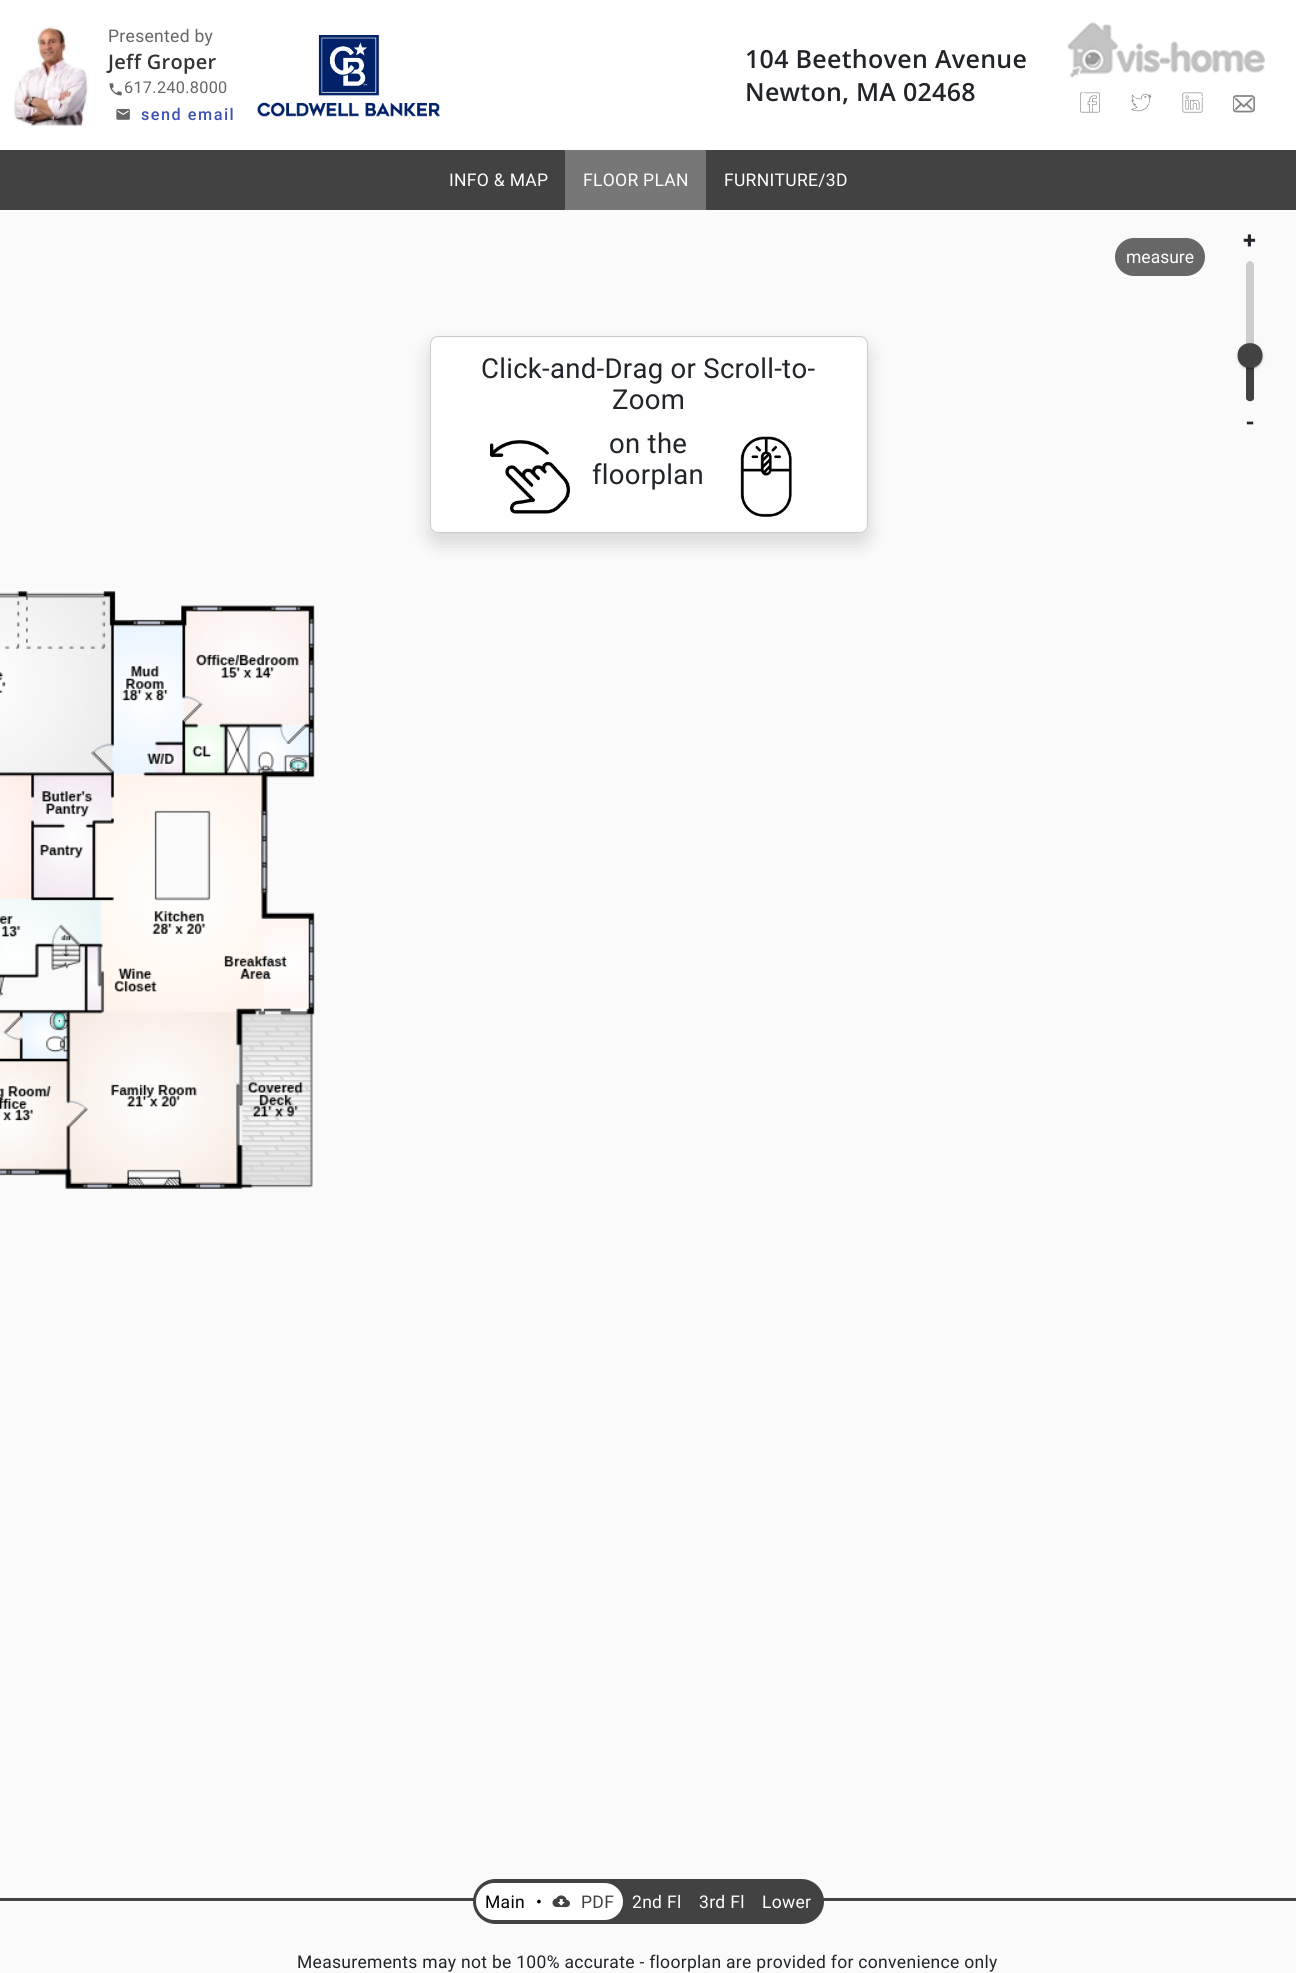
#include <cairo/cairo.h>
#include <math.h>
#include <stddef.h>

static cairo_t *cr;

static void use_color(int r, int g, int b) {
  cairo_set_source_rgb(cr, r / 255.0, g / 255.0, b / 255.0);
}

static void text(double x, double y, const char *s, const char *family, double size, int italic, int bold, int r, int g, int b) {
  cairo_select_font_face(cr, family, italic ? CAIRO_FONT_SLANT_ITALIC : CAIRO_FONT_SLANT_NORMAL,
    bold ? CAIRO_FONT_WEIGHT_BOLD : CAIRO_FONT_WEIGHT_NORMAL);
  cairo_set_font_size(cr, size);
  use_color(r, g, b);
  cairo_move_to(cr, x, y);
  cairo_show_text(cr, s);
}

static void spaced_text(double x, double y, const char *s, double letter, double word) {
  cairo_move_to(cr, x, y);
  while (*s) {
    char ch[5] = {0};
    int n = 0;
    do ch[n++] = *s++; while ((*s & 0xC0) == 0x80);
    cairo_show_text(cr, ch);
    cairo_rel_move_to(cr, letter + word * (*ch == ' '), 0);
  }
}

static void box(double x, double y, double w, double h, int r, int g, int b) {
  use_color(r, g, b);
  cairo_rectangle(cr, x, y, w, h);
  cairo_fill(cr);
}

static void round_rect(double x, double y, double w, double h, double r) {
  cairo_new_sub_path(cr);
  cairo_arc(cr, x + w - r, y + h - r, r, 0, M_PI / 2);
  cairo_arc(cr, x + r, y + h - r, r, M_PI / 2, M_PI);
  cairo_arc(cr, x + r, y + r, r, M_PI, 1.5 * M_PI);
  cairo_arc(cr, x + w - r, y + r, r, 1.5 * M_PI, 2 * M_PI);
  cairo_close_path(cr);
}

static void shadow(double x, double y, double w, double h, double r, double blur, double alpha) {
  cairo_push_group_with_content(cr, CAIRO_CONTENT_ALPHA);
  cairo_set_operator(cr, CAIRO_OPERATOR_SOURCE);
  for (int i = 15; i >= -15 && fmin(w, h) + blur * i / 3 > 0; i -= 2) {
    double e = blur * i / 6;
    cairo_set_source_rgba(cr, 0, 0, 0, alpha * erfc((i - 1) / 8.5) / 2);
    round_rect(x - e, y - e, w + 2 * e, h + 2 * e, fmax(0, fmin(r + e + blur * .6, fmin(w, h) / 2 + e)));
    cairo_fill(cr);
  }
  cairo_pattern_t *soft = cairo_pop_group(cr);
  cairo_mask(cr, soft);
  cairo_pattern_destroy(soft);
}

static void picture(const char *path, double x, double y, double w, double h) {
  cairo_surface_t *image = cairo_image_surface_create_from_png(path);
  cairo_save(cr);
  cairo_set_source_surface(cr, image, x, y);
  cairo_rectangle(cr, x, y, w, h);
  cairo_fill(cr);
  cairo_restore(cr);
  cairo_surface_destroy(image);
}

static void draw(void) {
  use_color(255, 255, 255);
  cairo_paint(cr);
  picture("img_01.png", 13, 26, 75, 100);
  picture("img_02.png", 109, 83, 13, 13);
  picture("img_03.png", 116, 108, 14, 12);
  picture("img_04.png", 257, 35, 183, 82);
  picture("img_05.png", 1067, 22, 198, 56);
  picture("img_06.png", 1080, 92, 20, 21);
  picture("img_07.png", 1131, 93, 21, 19);
  picture("img_08.png", 1182, 92, 21, 21);
  picture("img_09.png", 1233, 95, 22, 18);
  box(0, 150, 1296, 60, 66, 66, 66);
  box(565, 150, 141, 60, 119, 119, 119);
  box(0, 210, 1296, 1763, 250, 250, 250);
  use_color(103, 103, 103);
  round_rect(1115, 238, 90, 38, 19);
  cairo_fill(cr);
  use_color(204, 204, 204);
  cairo_new_path(cr);
  cairo_move_to(cr, 1246, 398);
  cairo_line_to(cr, 1246, 265);
  cairo_curve_to(cr, 1246, 263, 1248, 261, 1250, 261);
  cairo_curve_to(cr, 1252, 261, 1254, 263, 1254, 265);
  cairo_line_to(cr, 1254, 398);
  cairo_curve_to(cr, 1254, 400, 1252, 401, 1250, 401);
  cairo_curve_to(cr, 1248, 401, 1246, 400, 1246, 398);
  cairo_close_path(cr);
  cairo_fill(cr);
  use_color(66, 66, 66);
  cairo_new_path(cr);
  cairo_move_to(cr, 1246, 398);
  cairo_curve_to(cr, 1246, 400, 1249, 402, 1252, 401);
  cairo_line_to(cr, 1254, 399);
  cairo_line_to(cr, 1254, 356);
  cairo_line_to(cr, 1246, 356);
  cairo_close_path(cr);
  cairo_fill(cr);
  use_color(0, 0, 0);
  shadow(1238, 344, 25, 25, 12.5, 2, 0.12);
  shadow(1238, 344, 25, 25, 12.5, 0.5, 0.14);
  shadow(1239, 346, 22, 23, 11, 0.5, 0.2);
  use_color(66, 66, 66);
  cairo_new_path(cr);
  cairo_move_to(cr, 1237.5, 355.5);
  cairo_curve_to(cr, 1237.5, 339, 1262.5, 339, 1262.5, 355.5);
  cairo_curve_to(cr, 1262.5, 372, 1237.5, 372, 1237.5, 355.5);
  cairo_close_path(cr);
  cairo_fill(cr);
  picture("img_10.png", 0, 591, 315, 598);
  box(0, 1898, 1296, 3, 66, 66, 66);
  round_rect(473, 1879, 351, 45, 22.5);
  cairo_fill(cr);
  use_color(255, 255, 255);
  round_rect(476, 1883, 147, 37, 18.5);
  cairo_fill(cr);
  picture("img_11.png", 552, 1895, 18, 13);
  cairo_save(cr);
  cairo_set_fill_rule(cr, CAIRO_FILL_RULE_EVEN_ODD);
  cairo_new_path(cr);
  cairo_move_to(cr, 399, 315);
  cairo_line_to(cr, 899, 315);
  cairo_line_to(cr, 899, 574);
  cairo_line_to(cr, 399, 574);
  cairo_close_path(cr);
  cairo_move_to(cr, 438, 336);
  cairo_line_to(cr, 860, 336);
  cairo_curve_to(cr, 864.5, 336, 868, 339.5, 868, 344);
  cairo_line_to(cr, 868, 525);
  cairo_curve_to(cr, 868, 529.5, 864.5, 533, 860, 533);
  cairo_line_to(cr, 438, 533);
  cairo_curve_to(cr, 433.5, 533, 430, 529.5, 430, 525);
  cairo_line_to(cr, 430, 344);
  cairo_curve_to(cr, 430, 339.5, 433.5, 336, 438, 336);
  cairo_close_path(cr);
  cairo_clip(cr);
  use_color(0, 0, 0);
  shadow(430, 346, 438, 197, 8, 10, 0.15);
  cairo_restore(cr);
  use_color(254, 254, 254);
  round_rect(431, 338, 435, 193, 6);
  cairo_fill(cr);
  round_rect(430.5, 336.5, 437, 196, 7.5);
  cairo_set_source_rgba(cr, 0, 0, 0, 0.18);
  cairo_set_line_width(cr, 1);
  cairo_stroke(cr);
  picture("img_12.png", 490, 440, 80, 74);
  picture("img_13.png", 740, 436, 52, 81);
  cairo_select_font_face(cr, "Roboto", CAIRO_FONT_SLANT_NORMAL, CAIRO_FONT_WEIGHT_NORMAL);
  cairo_set_font_size(cr, 17.5);
  use_color(102, 102, 102);
  spaced_text(108, 42, "Presented by", 0.3, 0);
  cairo_select_font_face(cr, "Open Sans SemiBold", CAIRO_FONT_SLANT_NORMAL, CAIRO_FONT_WEIGHT_NORMAL);
  cairo_set_font_size(cr, 20);
  use_color(51, 51, 51);
  spaced_text(108, 69, "Jeff Groper", 0.3, 0);
  cairo_select_font_face(cr, "Roboto", CAIRO_FONT_SLANT_NORMAL, CAIRO_FONT_WEIGHT_NORMAL);
  cairo_set_font_size(cr, 16.25);
  use_color(102, 102, 102);
  spaced_text(124, 93, "617.240.8000", 0.3, 0);
  cairo_select_font_face(cr, "Roboto Medium", CAIRO_FONT_SLANT_NORMAL, CAIRO_FONT_WEIGHT_NORMAL);
  use_color(63, 81, 181);
  spaced_text(141, 120, "send email", 1.5, 0);
  cairo_select_font_face(cr, "Open Sans SemiBold", CAIRO_FONT_SLANT_NORMAL, CAIRO_FONT_WEIGHT_NORMAL);
  cairo_set_font_size(cr, 25);
  use_color(33, 37, 41);
  spaced_text(745, 68, "104 Beethoven Avenue", 0.3, 0);
  spaced_text(745, 101, "Newton, MA 02468", 0.3, 0);
  cairo_select_font_face(cr, "Roboto", CAIRO_FONT_SLANT_NORMAL, CAIRO_FONT_WEIGHT_NORMAL);
  cairo_set_font_size(cr, 17.5);
  use_color(255, 255, 255);
  spaced_text(449, 186, "INFO & MAP", 0.3, 0);
  spaced_text(583, 186, "FLOOR PLAN", 0.3, 0);
  spaced_text(724, 186, "FURNITURE/3D", 0.3, 0);
  text(1126, 263, "measure", "Roboto", 17.5, 0, 0, 255, 255, 255);
  cairo_select_font_face(cr, "Roboto", CAIRO_FONT_SLANT_NORMAL, CAIRO_FONT_WEIGHT_BOLD);
  cairo_set_font_size(cr, 22);
  use_color(33, 37, 41);
  spaced_text(1243, 248, "+", 0.3, 0);
  spaced_text(1246, 430, "-", 0.3, 0);
  cairo_select_font_face(cr, "Roboto", CAIRO_FONT_SLANT_NORMAL, CAIRO_FONT_WEIGHT_NORMAL);
  cairo_set_font_size(cr, 17.5);
  use_color(0, 0, 0);
  spaced_text(485, 1908, "Main", 0.3, 0);
  spaced_text(536, 1908, "•", 0.3, 0);
  use_color(66, 66, 66);
  spaced_text(581, 1908, "PDF", 0.3, 0);
  use_color(255, 255, 255);
  spaced_text(632, 1908, "2nd Fl", 0.3, 0);
  spaced_text(699, 1908, "3rd Fl", 0.3, 0);
  spaced_text(762, 1908, "Lower", 0.3, 0);
  use_color(33, 37, 41);
  spaced_text(297, 1968, "Measurements may not be 100% accurate - floorplan are provided for convenience only", 0.3, 0);
  cairo_set_font_size(cr, 27.5);
  spaced_text(481, 378, "Click-and-Drag or Scroll-to-", 0.3, 0);
  spaced_text(612, 409, "Zoom", 0.3, 0);
  spaced_text(609, 453, "on the", 0.3, 0);
  spaced_text(592, 484, "floorplan", 0.3, 0);
}

int main(void) {
  cairo_surface_t *surface = cairo_image_surface_create(CAIRO_FORMAT_RGB24, 1296, 1973);
  cr = cairo_create(surface);
  cairo_font_options_t *options = cairo_font_options_create();
  cairo_font_options_set_hint_metrics(options, CAIRO_HINT_METRICS_OFF);
  cairo_font_options_set_hint_style(options, CAIRO_HINT_STYLE_NONE);
  cairo_set_font_options(cr, options);
  cairo_set_miter_limit(cr, 4);
  draw();
  cairo_surface_write_to_png(surface, "out.png");
  cairo_font_options_destroy(options);
  cairo_destroy(cr);
  cairo_surface_destroy(surface);
  return 0;
}
